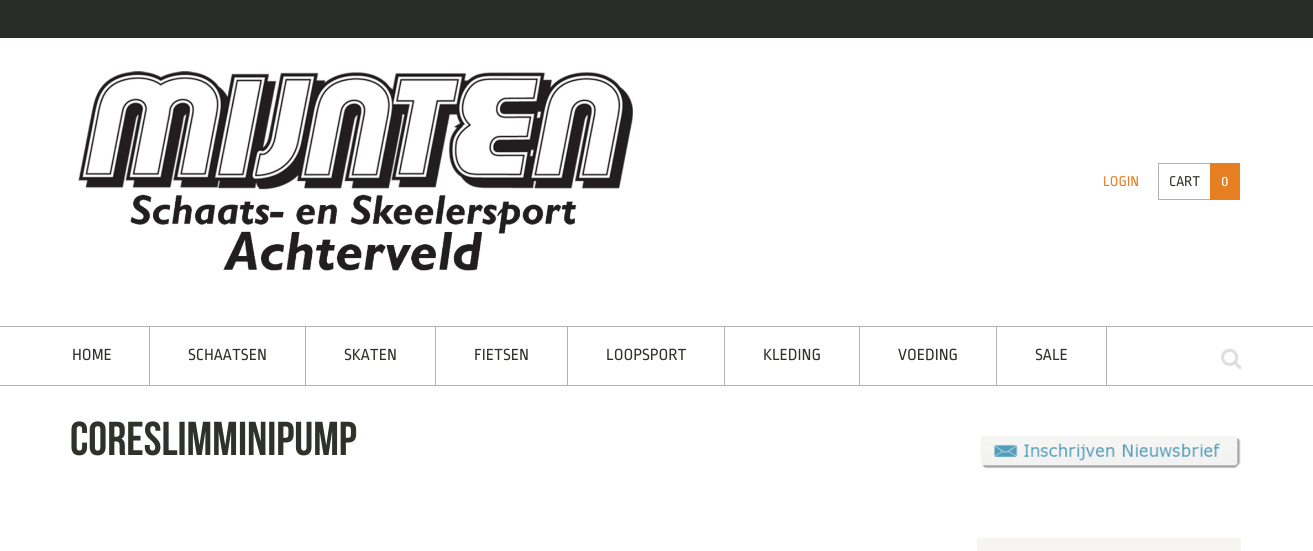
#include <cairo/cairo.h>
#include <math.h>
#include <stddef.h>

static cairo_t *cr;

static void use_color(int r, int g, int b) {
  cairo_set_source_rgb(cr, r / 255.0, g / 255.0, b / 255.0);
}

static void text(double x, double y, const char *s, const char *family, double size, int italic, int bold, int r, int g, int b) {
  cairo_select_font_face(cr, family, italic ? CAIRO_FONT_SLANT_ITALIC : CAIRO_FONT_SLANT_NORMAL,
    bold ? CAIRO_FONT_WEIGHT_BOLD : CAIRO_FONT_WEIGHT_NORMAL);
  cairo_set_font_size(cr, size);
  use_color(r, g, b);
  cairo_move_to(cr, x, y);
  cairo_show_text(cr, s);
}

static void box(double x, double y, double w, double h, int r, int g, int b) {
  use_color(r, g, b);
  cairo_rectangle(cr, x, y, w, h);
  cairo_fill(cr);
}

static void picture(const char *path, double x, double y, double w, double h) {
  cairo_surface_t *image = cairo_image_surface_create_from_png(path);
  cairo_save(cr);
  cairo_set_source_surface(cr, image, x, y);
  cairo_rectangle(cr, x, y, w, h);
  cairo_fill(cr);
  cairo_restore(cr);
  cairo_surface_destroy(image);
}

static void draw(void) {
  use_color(255, 255, 255);
  cairo_paint(cr);
  box(0, 0, 1313, 38, 41, 43, 39);
  picture("img_01.png", 78, 71, 555, 200);
  box(1158, 163, 52, 1, 178, 178, 178);
  box(1158, 199, 52, 1, 178, 178, 178);
  box(1158, 163, 1, 37, 178, 178, 178);
  box(1210, 163, 30, 37, 230, 126, 34);
  box(0, 326, 1313, 1, 178, 178, 178);
  box(0, 385, 1313, 1, 178, 178, 178);
  box(149, 327, 1, 58, 178, 178, 178);
  box(305, 327, 1, 58, 178, 178, 178);
  box(435, 327, 1, 58, 178, 178, 178);
  box(567, 327, 1, 58, 178, 178, 178);
  box(724, 327, 1, 58, 178, 178, 178);
  box(859, 327, 1, 58, 178, 178, 178);
  box(996, 327, 1, 58, 178, 178, 178);
  box(1106, 327, 1, 58, 178, 178, 178);
  picture("img_02.png", 1221, 348, 21, 21);
  picture("img_03.png", 980, 436, 261, 33);
  box(977, 538, 264, 13, 247, 245, 241);
  text(1103, 186, "LOGIN", "Ropa Sans", 15, 0, 0, 230, 126, 34);
  text(1169, 186, "CART", "Ropa Sans", 15, 0, 0, 47, 50, 43);
  text(1221, 186, "0", "Ropa Sans", 15, 0, 0, 255, 255, 255);
  text(72, 360, "HOME", "Ropa Sans", 17, 0, 0, 47, 50, 43);
  text(188, 360, "SCHAATSEN", "Ropa Sans", 17, 0, 0, 47, 50, 43);
  text(344, 360, "SKATEN", "Ropa Sans", 17, 0, 0, 47, 50, 43);
  text(474, 360, "FIETSEN", "Ropa Sans", 17, 0, 0, 47, 50, 43);
  text(606, 360, "LOOPSPORT", "Ropa Sans", 17, 0, 0, 47, 50, 43);
  text(763, 360, "KLEDING", "Ropa Sans", 17, 0, 0, 47, 50, 43);
  text(898, 360, "VOEDING", "Ropa Sans", 17, 0, 0, 47, 50, 43);
  text(1035, 360, "SALE", "Ropa Sans", 17, 0, 0, 47, 50, 43);
  text(70, 455, "coreslimminipump", "Bebas Neue", 47.5, 0, 0, 47, 50, 43);
}

int main(void) {
  cairo_surface_t *surface = cairo_image_surface_create(CAIRO_FORMAT_RGB24, 1313, 551);
  cr = cairo_create(surface);
  cairo_font_options_t *options = cairo_font_options_create();
  cairo_font_options_set_hint_metrics(options, CAIRO_HINT_METRICS_OFF);
  cairo_font_options_set_hint_style(options, CAIRO_HINT_STYLE_NONE);
  cairo_set_font_options(cr, options);
  cairo_set_miter_limit(cr, 4);
  draw();
  cairo_surface_write_to_png(surface, "out.png");
  cairo_font_options_destroy(options);
  cairo_destroy(cr);
  cairo_surface_destroy(surface);
  return 0;
}
